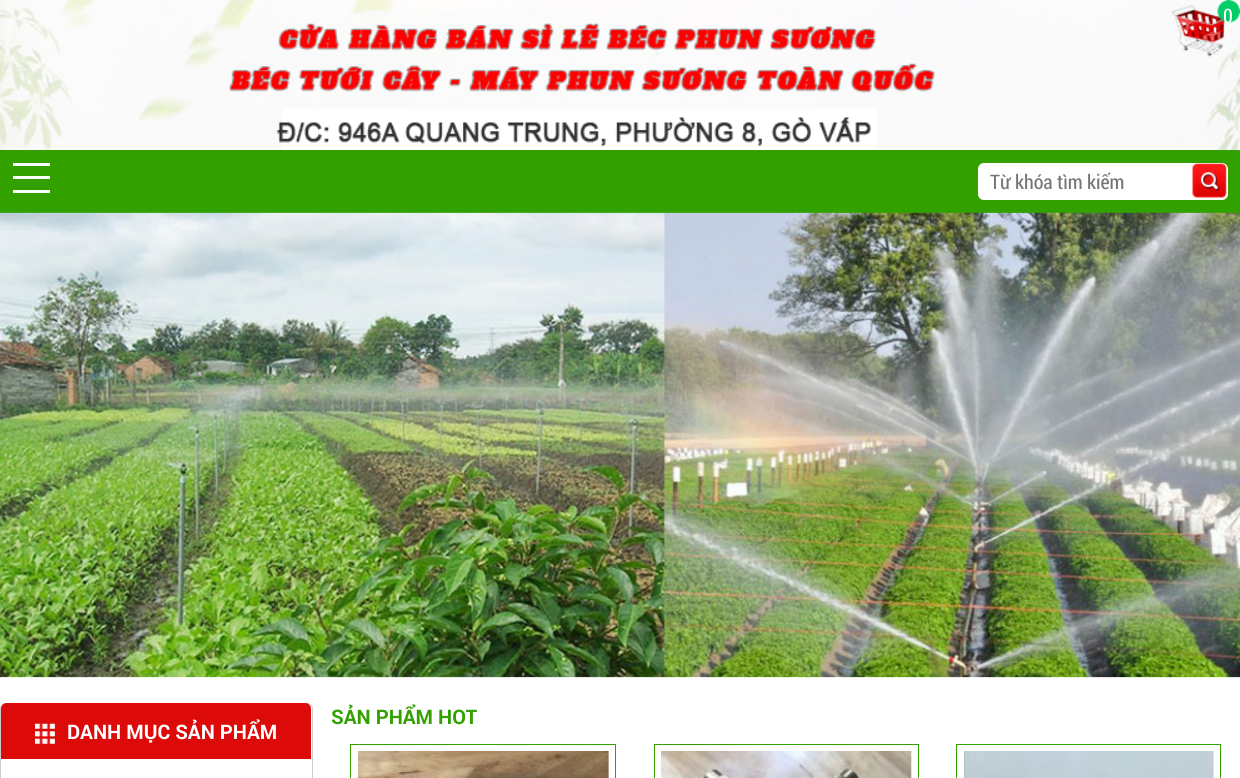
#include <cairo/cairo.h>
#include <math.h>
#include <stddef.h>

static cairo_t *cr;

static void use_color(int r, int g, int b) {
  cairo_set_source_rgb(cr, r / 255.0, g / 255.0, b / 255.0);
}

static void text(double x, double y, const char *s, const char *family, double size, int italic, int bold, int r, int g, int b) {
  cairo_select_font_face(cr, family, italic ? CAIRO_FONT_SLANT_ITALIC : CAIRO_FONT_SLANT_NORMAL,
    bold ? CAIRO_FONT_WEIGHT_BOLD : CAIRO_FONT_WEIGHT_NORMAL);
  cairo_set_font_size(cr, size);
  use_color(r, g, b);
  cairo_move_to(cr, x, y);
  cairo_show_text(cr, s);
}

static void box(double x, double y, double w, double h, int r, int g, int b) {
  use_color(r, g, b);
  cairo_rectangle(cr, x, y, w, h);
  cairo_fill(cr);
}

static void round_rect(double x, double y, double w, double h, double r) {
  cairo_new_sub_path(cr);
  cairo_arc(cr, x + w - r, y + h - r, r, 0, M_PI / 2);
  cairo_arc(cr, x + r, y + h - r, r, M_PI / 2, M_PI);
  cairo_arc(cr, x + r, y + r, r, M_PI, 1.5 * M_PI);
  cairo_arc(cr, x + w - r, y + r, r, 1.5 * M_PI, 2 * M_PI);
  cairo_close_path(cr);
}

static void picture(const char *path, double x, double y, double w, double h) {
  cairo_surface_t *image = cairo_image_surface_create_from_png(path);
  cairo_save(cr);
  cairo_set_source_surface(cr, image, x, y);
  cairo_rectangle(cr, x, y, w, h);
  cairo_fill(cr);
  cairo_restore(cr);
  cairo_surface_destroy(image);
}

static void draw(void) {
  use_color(255, 255, 255);
  cairo_paint(cr);
  picture("img_01.png", 0, 0, 1240, 150);
  picture("img_02.png", 1171, 0, 69, 57);
  box(0, 150, 1240, 63, 50, 161, 0);
  box(13, 163, 37, 3, 255, 255, 255);
  box(13, 176, 37, 3, 255, 255, 255);
  box(13, 190, 37, 3, 255, 255, 255);
  round_rect(978, 163, 250, 37, 6);
  cairo_fill(cr);
  picture("img_03.png", 1192, 163, 35, 35);
  picture("img_04.png", 0, 212, 1240, 466);
  cairo_rectangle(cr, 350.5, 744.5, 265, 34);
  use_color(50, 161, 0);
  cairo_set_line_width(cr, 1);
  cairo_stroke(cr);
  picture("img_05.png", 358, 751, 251, 27);
  cairo_rectangle(cr, 654.5, 744.5, 264, 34);
  cairo_stroke(cr);
  picture("img_06.png", 661, 751, 251, 27);
  cairo_rectangle(cr, 956.5, 744.5, 264, 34);
  cairo_stroke(cr);
  picture("img_07.png", 964, 751, 250, 27);
  round_rect(0.5, 703.5, 312, 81, 5.5);
  use_color(204, 204, 204);
  cairo_stroke(cr);
  use_color(221, 10, 10);
  cairo_new_path(cr);
  cairo_move_to(cr, 7, 703);
  cairo_line_to(cr, 305, 703);
  cairo_curve_to(cr, 308.5, 703, 311, 705.5, 311, 709);
  cairo_line_to(cr, 311, 759);
  cairo_line_to(cr, 1, 759);
  cairo_line_to(cr, 1, 709);
  cairo_curve_to(cr, 1, 705.5, 3.5, 703, 7, 703);
  cairo_close_path(cr);
  cairo_fill(cr);
  picture("img_08.png", 35, 723, 20, 21);
  text(1223, 23, "0", "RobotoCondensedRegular", 20, 0, 0, 255, 255, 255);
  text(990, 189, "Từ khóa tìm kiếm", "RobotoCondensedRegular", 20, 0, 0, 117, 117, 117);
  text(331, 724, "SẢN PHẨM HOT", "Roboto", 20, 0, 1, 50, 161, 0);
  text(67, 739, "DANH MỤC SẢN PHẨM", "Roboto", 20, 0, 1, 255, 255, 255);
}

int main(void) {
  cairo_surface_t *surface = cairo_image_surface_create(CAIRO_FORMAT_RGB24, 1240, 778);
  cr = cairo_create(surface);
  cairo_font_options_t *options = cairo_font_options_create();
  cairo_font_options_set_hint_metrics(options, CAIRO_HINT_METRICS_OFF);
  cairo_font_options_set_hint_style(options, CAIRO_HINT_STYLE_NONE);
  cairo_set_font_options(cr, options);
  cairo_set_miter_limit(cr, 4);
  draw();
  cairo_surface_write_to_png(surface, "out.png");
  cairo_font_options_destroy(options);
  cairo_destroy(cr);
  cairo_surface_destroy(surface);
  return 0;
}
